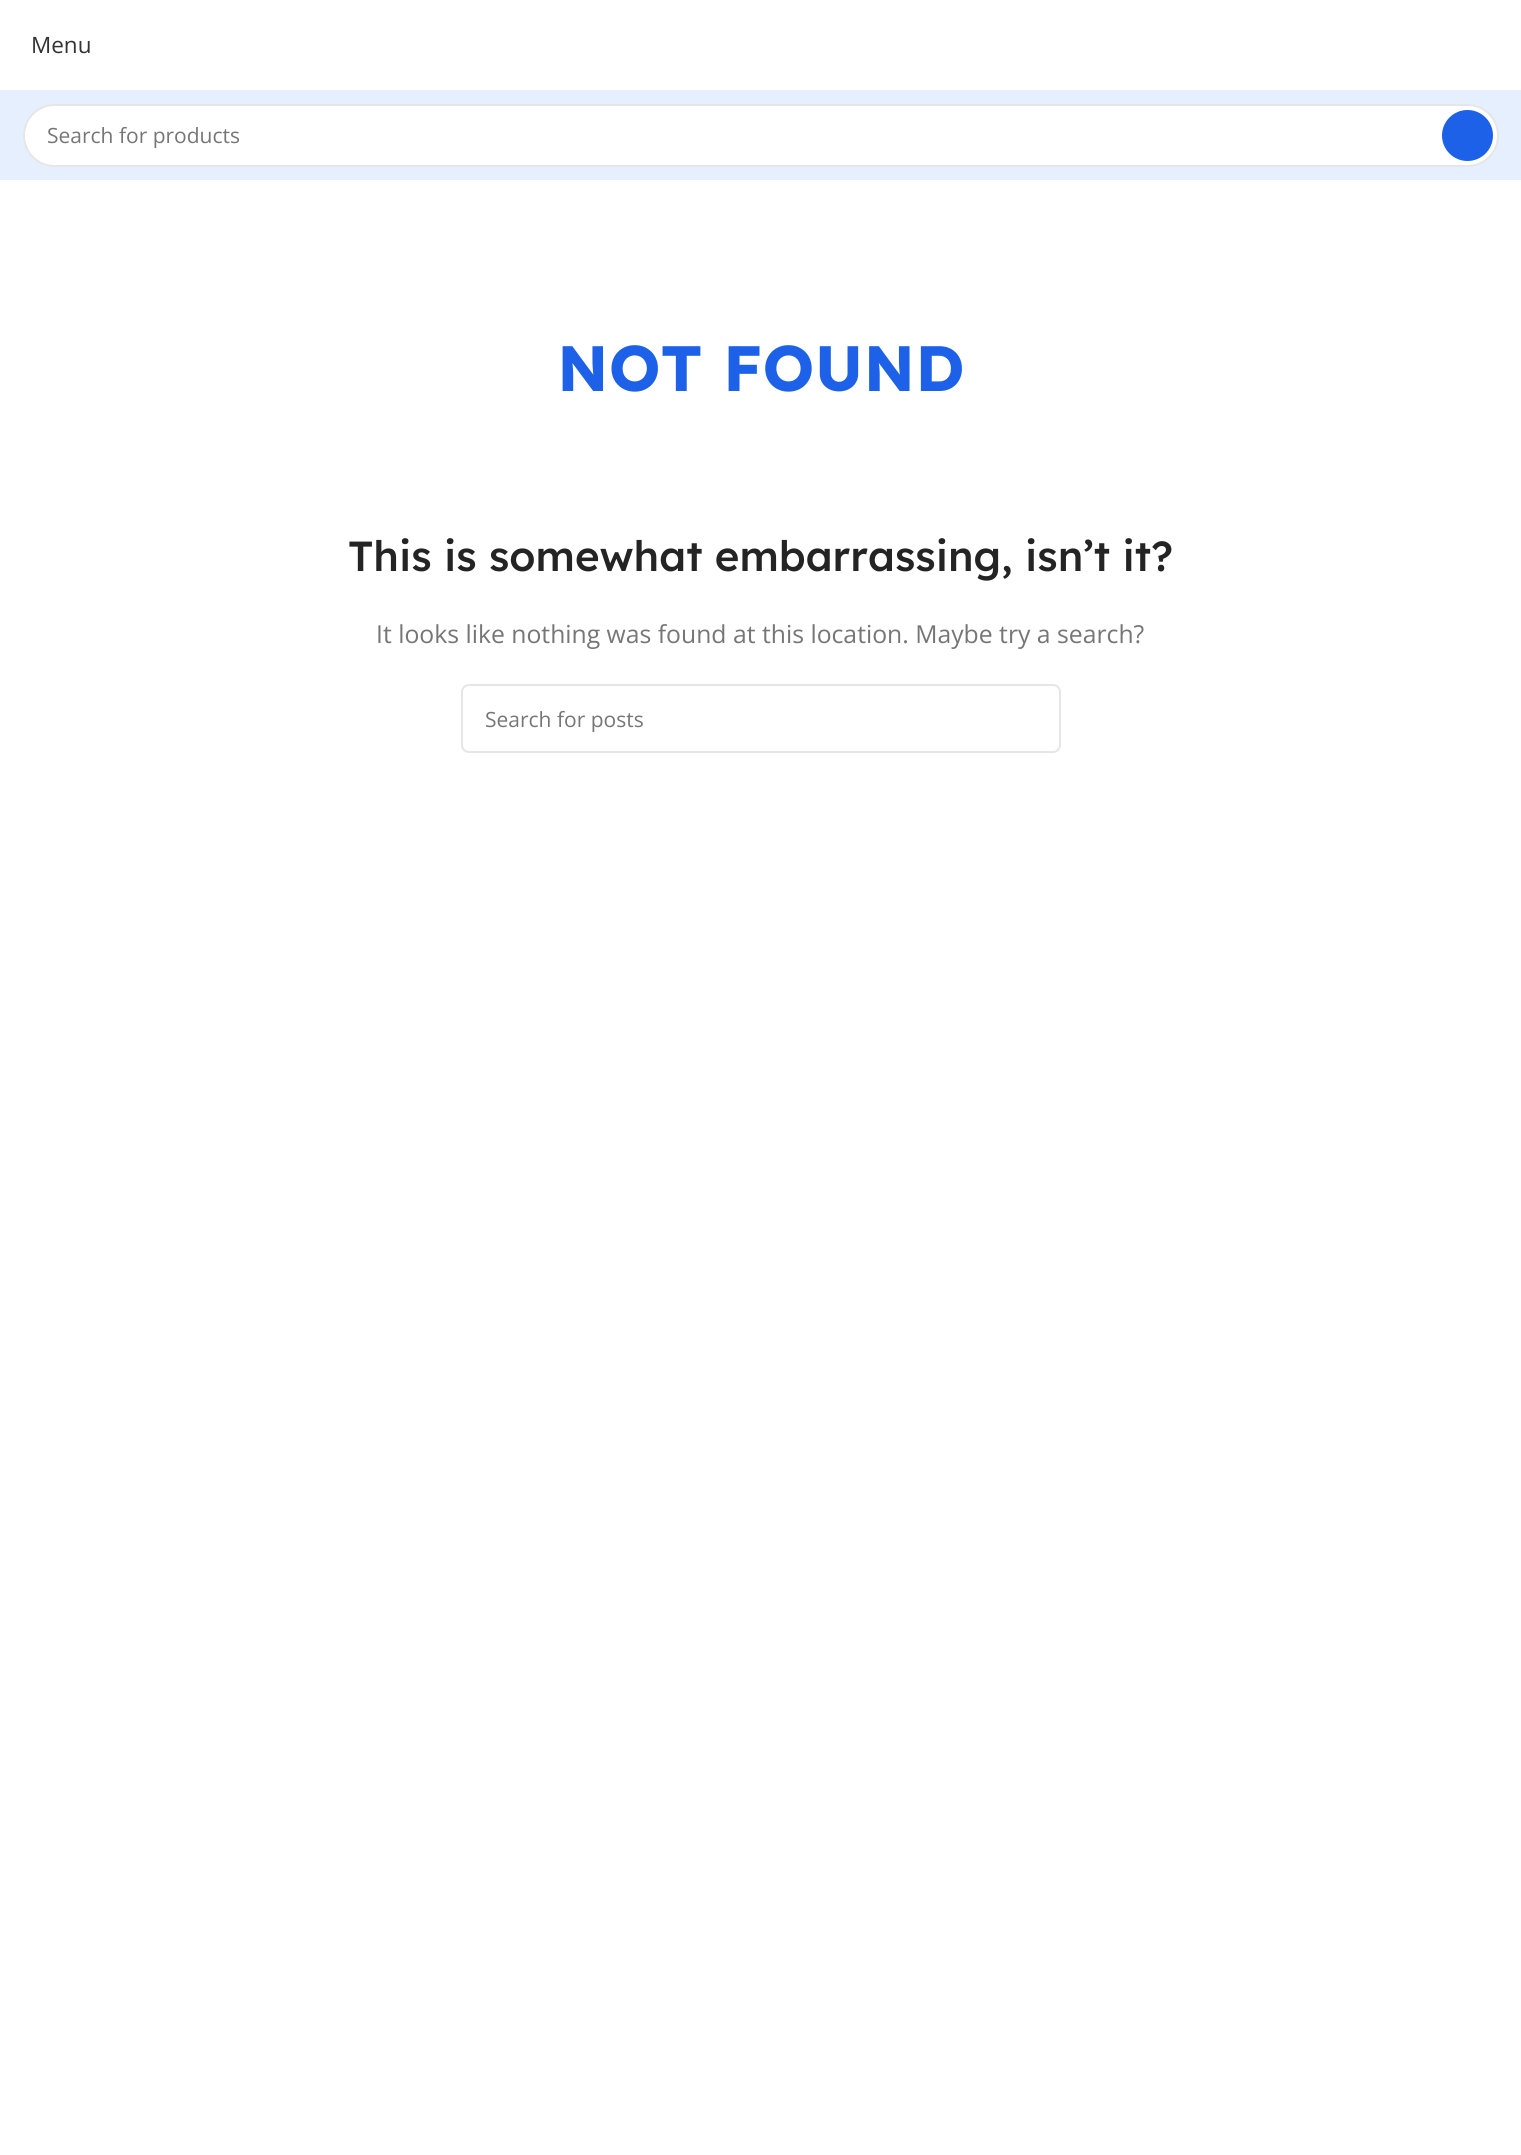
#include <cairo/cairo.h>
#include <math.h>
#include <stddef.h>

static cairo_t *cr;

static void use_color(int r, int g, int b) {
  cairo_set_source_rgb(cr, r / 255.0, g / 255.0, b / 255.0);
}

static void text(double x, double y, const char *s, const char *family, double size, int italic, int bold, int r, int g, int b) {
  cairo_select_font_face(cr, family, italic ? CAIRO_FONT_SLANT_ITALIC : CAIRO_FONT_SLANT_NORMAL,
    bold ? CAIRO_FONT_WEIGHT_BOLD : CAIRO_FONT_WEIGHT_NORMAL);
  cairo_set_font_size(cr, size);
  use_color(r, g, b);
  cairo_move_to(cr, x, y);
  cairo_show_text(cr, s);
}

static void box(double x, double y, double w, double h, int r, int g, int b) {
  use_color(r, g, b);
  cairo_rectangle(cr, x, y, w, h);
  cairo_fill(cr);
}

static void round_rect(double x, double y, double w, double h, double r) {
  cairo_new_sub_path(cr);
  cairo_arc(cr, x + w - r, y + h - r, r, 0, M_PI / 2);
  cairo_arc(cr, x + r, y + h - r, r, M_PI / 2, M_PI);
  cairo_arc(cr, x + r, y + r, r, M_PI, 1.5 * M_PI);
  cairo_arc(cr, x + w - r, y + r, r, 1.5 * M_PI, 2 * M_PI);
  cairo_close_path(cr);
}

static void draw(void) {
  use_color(255, 255, 255);
  cairo_paint(cr);
  box(0, 90, 1521, 90, 230, 239, 253);
  use_color(255, 255, 255);
  round_rect(23, 104, 1476, 63, 31.5);
  cairo_fill(cr);
  round_rect(24, 105, 1474, 61, 30.5);
  cairo_set_source_rgba(cr, 0, 0, 0, 0.1);
  cairo_stroke(cr);
  use_color(28, 97, 231);
  cairo_arc(cr, 1467.5, 135.5, 25.5, 0, 2 * M_PI);
  cairo_fill(cr);
  round_rect(462, 685, 598, 67, 7);
  use_color(230, 230, 230);
  cairo_stroke(cr);
  text(31, 53, "Menu", "Open Sans", 22.5, 0, 0, 51, 51, 51);
  text(47, 143, "Search for products", "Open Sans", 21, 0, 0, 118, 118, 118);
  text(557, 391, "NOT FOUND", "Lexend Deca", 64, 0, 1, 28, 97, 231);
  text(348, 571, "This is somewhat embarrassing, isn’t it?", "Lexend Deca Medium", 42, 0, 0, 36, 36, 36);
  text(376, 643, "It looks like nothing was found at this location. Maybe try a search?", "Open Sans", 24.75, 0, 0, 118, 118, 118);
  text(485, 727, "Search for posts", "Open Sans", 21, 0, 0, 118, 118, 118);
}

int main(void) {
  cairo_surface_t *surface = cairo_image_surface_create(CAIRO_FORMAT_RGB24, 1521, 2155);
  cr = cairo_create(surface);
  cairo_font_options_t *options = cairo_font_options_create();
  cairo_font_options_set_hint_metrics(options, CAIRO_HINT_METRICS_OFF);
  cairo_font_options_set_hint_style(options, CAIRO_HINT_STYLE_NONE);
  cairo_set_font_options(cr, options);
  cairo_set_miter_limit(cr, 4);
  draw();
  cairo_surface_write_to_png(surface, "out.png");
  cairo_font_options_destroy(options);
  cairo_destroy(cr);
  cairo_surface_destroy(surface);
  return 0;
}
